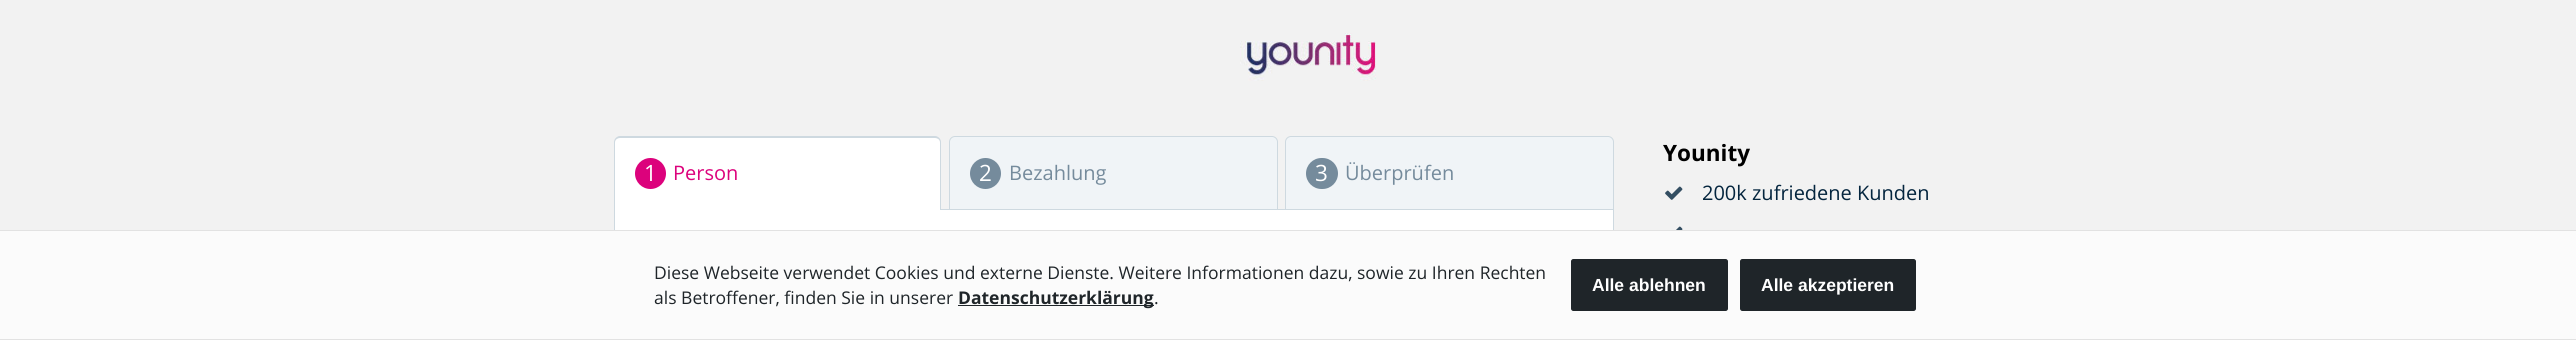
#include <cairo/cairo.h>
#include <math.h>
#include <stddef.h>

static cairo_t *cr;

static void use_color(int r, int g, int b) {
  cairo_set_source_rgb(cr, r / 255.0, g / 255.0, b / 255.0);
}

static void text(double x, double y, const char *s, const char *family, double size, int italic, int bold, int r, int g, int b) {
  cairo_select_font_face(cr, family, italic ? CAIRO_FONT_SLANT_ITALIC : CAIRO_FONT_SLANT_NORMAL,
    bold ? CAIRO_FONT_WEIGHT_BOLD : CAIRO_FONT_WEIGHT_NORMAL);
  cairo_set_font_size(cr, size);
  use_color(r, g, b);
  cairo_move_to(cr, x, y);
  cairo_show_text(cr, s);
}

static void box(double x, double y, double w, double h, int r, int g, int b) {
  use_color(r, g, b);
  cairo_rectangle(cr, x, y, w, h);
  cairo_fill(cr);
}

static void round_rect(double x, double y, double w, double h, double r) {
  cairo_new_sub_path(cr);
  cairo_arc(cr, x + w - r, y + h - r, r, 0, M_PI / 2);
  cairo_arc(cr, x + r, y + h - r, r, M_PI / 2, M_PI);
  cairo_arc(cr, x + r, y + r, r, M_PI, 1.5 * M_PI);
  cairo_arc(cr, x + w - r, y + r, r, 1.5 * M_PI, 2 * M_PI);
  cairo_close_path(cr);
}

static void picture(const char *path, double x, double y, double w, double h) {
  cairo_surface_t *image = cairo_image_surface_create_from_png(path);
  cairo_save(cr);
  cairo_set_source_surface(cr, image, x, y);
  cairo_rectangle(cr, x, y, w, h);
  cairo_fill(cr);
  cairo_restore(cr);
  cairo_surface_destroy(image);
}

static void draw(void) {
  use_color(242, 242, 242);
  cairo_paint(cr);
  picture("img_01.png", 1240, 33, 136, 48);
  box(615, 210, 998, 20, 255, 255, 255);
  cairo_rectangle(cr, 614.5, 209.5, 999, 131);
  use_color(206, 217, 224);
  cairo_set_line_width(cr, 1);
  cairo_stroke(cr);
  use_color(255, 255, 255);
  cairo_new_path(cr);
  cairo_move_to(cr, 620, 138);
  cairo_line_to(cr, 935, 138);
  cairo_curve_to(cr, 938, 138, 940, 140, 940, 143);
  cairo_line_to(cr, 940, 210);
  cairo_line_to(cr, 615, 210);
  cairo_line_to(cr, 615, 143);
  cairo_curve_to(cr, 615, 140, 617, 138, 620, 138);
  cairo_close_path(cr);
  cairo_fill(cr);
  use_color(206, 217, 224);
  cairo_set_fill_rule(cr, CAIRO_FILL_RULE_EVEN_ODD);
  cairo_new_path(cr);
  cairo_move_to(cr, 620, 136);
  cairo_line_to(cr, 935, 136);
  cairo_curve_to(cr, 938, 136, 941, 139, 941, 142);
  cairo_line_to(cr, 941, 210);
  cairo_line_to(cr, 614, 210);
  cairo_line_to(cr, 614, 142);
  cairo_curve_to(cr, 614, 139, 617, 136, 620, 136);
  cairo_close_path(cr);
  cairo_move_to(cr, 620, 138);
  cairo_line_to(cr, 935, 138);
  cairo_curve_to(cr, 938, 138, 940, 140, 940, 142);
  cairo_line_to(cr, 940, 210);
  cairo_line_to(cr, 615, 210);
  cairo_line_to(cr, 615, 142);
  cairo_curve_to(cr, 615, 140, 617, 138, 620, 138);
  cairo_close_path(cr);
  cairo_fill(cr);
  use_color(220, 2, 124);
  cairo_arc(cr, 650.5, 173.5, 15.5, 0, 2 * M_PI);
  cairo_fill(cr);
  use_color(240, 244, 247);
  cairo_new_path(cr);
  cairo_move_to(cr, 955, 136.5);
  cairo_line_to(cr, 1272, 136.5);
  cairo_curve_to(cr, 1275, 136.5, 1277.5, 139, 1277.5, 142);
  cairo_line_to(cr, 1277.5, 209.5);
  cairo_line_to(cr, 949.5, 209.5);
  cairo_line_to(cr, 949.5, 142);
  cairo_curve_to(cr, 949.5, 139, 952, 136.5, 955, 136.5);
  cairo_close_path(cr);
  cairo_fill_preserve(cr);
  use_color(206, 217, 224);
  cairo_stroke(cr);
  use_color(117, 139, 156);
  cairo_arc(cr, 985.5, 173.5, 15.5, 0, 2 * M_PI);
  cairo_fill(cr);
  use_color(240, 244, 247);
  cairo_new_path(cr);
  cairo_move_to(cr, 1291, 136.5);
  cairo_line_to(cr, 1608, 136.5);
  cairo_curve_to(cr, 1611, 136.5, 1613.5, 139, 1613.5, 142);
  cairo_line_to(cr, 1613.5, 209.5);
  cairo_line_to(cr, 1285.5, 209.5);
  cairo_line_to(cr, 1285.5, 142);
  cairo_curve_to(cr, 1285.5, 139, 1288, 136.5, 1291, 136.5);
  cairo_close_path(cr);
  cairo_fill_preserve(cr);
  use_color(206, 217, 224);
  cairo_stroke(cr);
  use_color(117, 139, 156);
  round_rect(1306, 158, 32, 31, 15.5);
  cairo_fill(cr);
  picture("img_02.png", 1665, 186, 18, 14);
  picture("img_03.png", 1676, 226, 7, 4);
  box(0, 231, 2576, 108, 251, 251, 251);
  box(0, 230, 2576, 1, 226, 226, 226);
  box(0, 339, 2576, 1, 226, 226, 226);
  box(958, 305, 196, 1, 31, 37, 41);
  round_rect(1571.5, 259.5, 156, 51, 2);
  cairo_fill_preserve(cr);
  cairo_stroke(cr);
  round_rect(1740.5, 259.5, 175, 51, 2);
  cairo_fill_preserve(cr);
  cairo_stroke(cr);
  text(644, 181, "1", "Open Sans", 22.5, 0, 0, 255, 255, 255);
  text(673, 180, "Person", "Open Sans", 20, 0, 0, 220, 2, 124);
  text(979, 181, "2", "Open Sans", 22.5, 0, 0, 255, 255, 255);
  text(1009, 180, "Bezahlung", "Open Sans", 20, 0, 0, 117, 139, 156);
  text(1315, 181, "3", "Open Sans", 22.5, 0, 0, 255, 255, 255);
  text(1345, 180, "Überprüfen", "Open Sans", 20, 0, 0, 117, 139, 156);
  text(1663, 161, "Younity", "Open Sans", 22.5, 0, 1, 0, 0, 0);
  text(1702, 200, "200k zufriedene Kunden", "Open Sans", 20, 0, 0, 4, 37, 62);
  text(654, 279, "Diese Webseite verwendet Cookies und externe Dienste. Weitere Informationen dazu, sowie zu Ihren Rechten", "Open Sans", 17.5, 0, 0, 31, 37, 41);
  text(654, 304, "als Betroffener, finden Sie in unserer", "Open Sans", 17.5, 0, 0, 31, 37, 41);
  text(958, 304, "Datenschutzerklärung", "Open Sans", 17.5, 0, 1, 31, 37, 41);
  text(1154, 304, ".", "Open Sans", 17.5, 0, 0, 31, 37, 41);
  text(1592, 291, "Alle ablehnen", "Liberation Sans", 17.5, 0, 1, 255, 255, 255);
  text(1761, 291, "Alle akzeptieren", "Liberation Sans", 17.5, 0, 1, 255, 255, 255);
}

int main(void) {
  cairo_surface_t *surface = cairo_image_surface_create(CAIRO_FORMAT_RGB24, 2576, 340);
  cr = cairo_create(surface);
  cairo_font_options_t *options = cairo_font_options_create();
  cairo_font_options_set_hint_metrics(options, CAIRO_HINT_METRICS_OFF);
  cairo_font_options_set_hint_style(options, CAIRO_HINT_STYLE_NONE);
  cairo_set_font_options(cr, options);
  cairo_set_miter_limit(cr, 4);
  draw();
  cairo_surface_write_to_png(surface, "out.png");
  cairo_font_options_destroy(options);
  cairo_destroy(cr);
  cairo_surface_destroy(surface);
  return 0;
}
